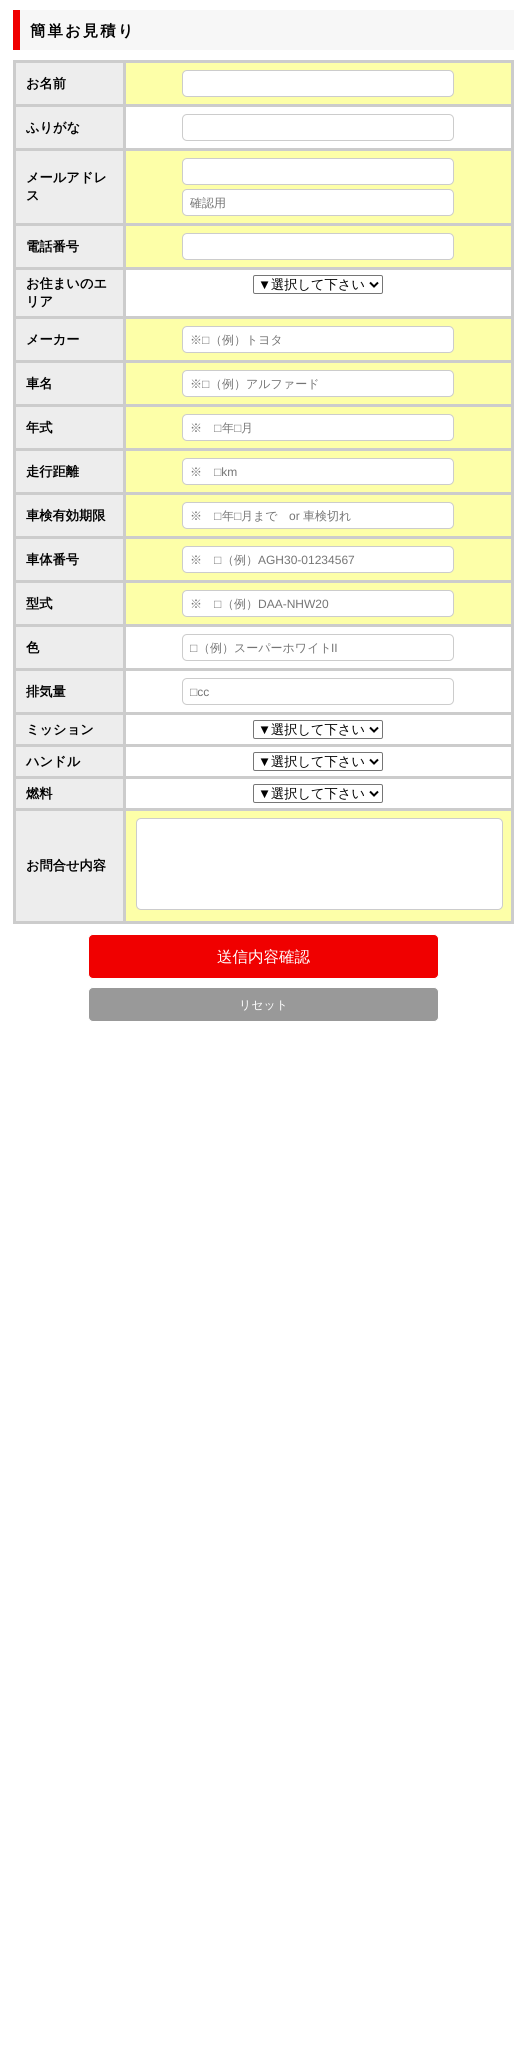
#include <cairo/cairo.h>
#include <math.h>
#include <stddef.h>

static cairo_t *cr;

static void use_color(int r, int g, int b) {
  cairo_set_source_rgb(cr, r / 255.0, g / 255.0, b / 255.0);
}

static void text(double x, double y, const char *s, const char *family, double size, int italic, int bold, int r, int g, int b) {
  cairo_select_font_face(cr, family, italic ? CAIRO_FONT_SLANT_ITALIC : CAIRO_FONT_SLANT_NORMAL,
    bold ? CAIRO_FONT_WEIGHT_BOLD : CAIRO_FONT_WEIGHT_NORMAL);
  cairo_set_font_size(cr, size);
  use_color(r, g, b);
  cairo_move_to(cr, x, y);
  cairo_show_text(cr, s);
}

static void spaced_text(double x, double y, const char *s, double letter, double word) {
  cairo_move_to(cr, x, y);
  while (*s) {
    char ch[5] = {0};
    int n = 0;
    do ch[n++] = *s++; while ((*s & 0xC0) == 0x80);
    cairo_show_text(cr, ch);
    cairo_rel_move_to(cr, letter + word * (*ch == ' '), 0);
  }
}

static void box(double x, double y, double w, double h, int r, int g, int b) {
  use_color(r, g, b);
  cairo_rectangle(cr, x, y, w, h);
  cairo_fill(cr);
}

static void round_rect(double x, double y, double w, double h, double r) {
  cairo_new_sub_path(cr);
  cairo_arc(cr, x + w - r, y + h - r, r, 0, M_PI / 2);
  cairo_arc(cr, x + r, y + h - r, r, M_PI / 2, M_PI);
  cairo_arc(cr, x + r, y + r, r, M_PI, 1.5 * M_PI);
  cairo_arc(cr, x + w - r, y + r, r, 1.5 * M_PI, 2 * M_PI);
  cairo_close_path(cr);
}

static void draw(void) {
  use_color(255, 255, 255);
  cairo_paint(cr);
  box(20, 10, 494, 40, 247, 247, 247);
  box(13, 10, 7, 40, 240, 0, 0);
  box(13, 60, 501, 3, 204, 204, 204);
  box(13, 60, 3, 864, 204, 204, 204);
  box(16, 63, 107, 41, 237, 237, 237);
  box(123, 63, 3, 861, 204, 204, 204);
  box(16, 104, 110, 3, 204, 204, 204);
  box(126, 63, 385, 41, 253, 255, 168);
  box(511, 63, 3, 861, 204, 204, 204);
  box(126, 104, 388, 3, 204, 204, 204);
  use_color(255, 255, 255);
  round_rect(182.5, 70.5, 271, 26, 4.5);
  cairo_fill_preserve(cr);
  use_color(204, 204, 204);
  cairo_set_line_width(cr, 1);
  cairo_stroke(cr);
  box(16, 107, 107, 41, 237, 237, 237);
  box(16, 148, 498, 3, 204, 204, 204);
  round_rect(182.5, 114.5, 271, 26, 4.5);
  cairo_stroke(cr);
  box(16, 151, 107, 72, 237, 237, 237);
  box(16, 223, 498, 3, 204, 204, 204);
  box(126, 151, 385, 72, 253, 255, 168);
  use_color(255, 255, 255);
  round_rect(182.5, 158.5, 271, 26, 4.5);
  cairo_fill_preserve(cr);
  use_color(204, 204, 204);
  cairo_stroke(cr);
  use_color(255, 255, 255);
  round_rect(182.5, 189.5, 271, 26, 4.5);
  cairo_fill_preserve(cr);
  use_color(204, 204, 204);
  cairo_stroke(cr);
  box(16, 226, 107, 41, 237, 237, 237);
  box(16, 267, 498, 3, 204, 204, 204);
  box(126, 226, 385, 41, 253, 255, 168);
  use_color(255, 255, 255);
  round_rect(182.5, 233.5, 271, 26, 4.5);
  cairo_fill_preserve(cr);
  use_color(204, 204, 204);
  cairo_stroke(cr);
  box(16, 270, 107, 46, 237, 237, 237);
  box(16, 316, 498, 3, 204, 204, 204);
  round_rect(253.5, 275.5, 129, 18, 1.5);
  use_color(118, 118, 118);
  cairo_stroke(cr);
  cairo_new_path(cr);
  cairo_move_to(cr, 370, 282.5);
  cairo_line_to(cr, 374, 286.5);
  cairo_line_to(cr, 378, 282.5);
  use_color(0, 0, 0);
  cairo_set_line_width(cr, 2);
  cairo_stroke(cr);
  box(16, 319, 107, 41, 237, 237, 237);
  box(16, 360, 498, 3, 204, 204, 204);
  box(126, 319, 385, 41, 253, 255, 168);
  use_color(255, 255, 255);
  round_rect(182.5, 326.5, 271, 26, 4.5);
  cairo_fill_preserve(cr);
  use_color(204, 204, 204);
  cairo_set_line_width(cr, 1);
  cairo_stroke(cr);
  box(16, 363, 107, 41, 237, 237, 237);
  box(16, 404, 498, 3, 204, 204, 204);
  box(126, 363, 385, 41, 253, 255, 168);
  use_color(255, 255, 255);
  round_rect(182.5, 370.5, 271, 26, 4.5);
  cairo_fill_preserve(cr);
  use_color(204, 204, 204);
  cairo_stroke(cr);
  box(16, 407, 107, 41, 237, 237, 237);
  box(16, 448, 498, 3, 204, 204, 204);
  box(126, 407, 385, 41, 253, 255, 168);
  use_color(255, 255, 255);
  round_rect(182.5, 414.5, 271, 26, 4.5);
  cairo_fill_preserve(cr);
  use_color(204, 204, 204);
  cairo_stroke(cr);
  box(16, 451, 107, 41, 237, 237, 237);
  box(16, 492, 498, 3, 204, 204, 204);
  box(126, 451, 385, 41, 253, 255, 168);
  use_color(255, 255, 255);
  round_rect(182.5, 458.5, 271, 26, 4.5);
  cairo_fill_preserve(cr);
  use_color(204, 204, 204);
  cairo_stroke(cr);
  box(16, 495, 107, 41, 237, 237, 237);
  box(16, 536, 498, 3, 204, 204, 204);
  box(126, 495, 385, 41, 253, 255, 168);
  use_color(255, 255, 255);
  round_rect(182.5, 502.5, 271, 26, 4.5);
  cairo_fill_preserve(cr);
  use_color(204, 204, 204);
  cairo_stroke(cr);
  box(16, 539, 107, 41, 237, 237, 237);
  box(16, 580, 498, 3, 204, 204, 204);
  box(126, 539, 385, 41, 253, 255, 168);
  use_color(255, 255, 255);
  round_rect(182.5, 546.5, 271, 26, 4.5);
  cairo_fill_preserve(cr);
  use_color(204, 204, 204);
  cairo_stroke(cr);
  box(16, 583, 107, 41, 237, 237, 237);
  box(16, 624, 498, 3, 204, 204, 204);
  box(126, 583, 385, 41, 253, 255, 168);
  use_color(255, 255, 255);
  round_rect(182.5, 590.5, 271, 26, 4.5);
  cairo_fill_preserve(cr);
  use_color(204, 204, 204);
  cairo_stroke(cr);
  box(16, 627, 107, 41, 237, 237, 237);
  box(16, 668, 498, 3, 204, 204, 204);
  round_rect(182.5, 634.5, 271, 26, 4.5);
  cairo_stroke(cr);
  box(16, 671, 107, 41, 237, 237, 237);
  box(16, 712, 498, 3, 204, 204, 204);
  round_rect(182.5, 678.5, 271, 26, 4.5);
  cairo_stroke(cr);
  box(16, 715, 107, 29, 237, 237, 237);
  box(16, 744, 498, 3, 204, 204, 204);
  round_rect(253.5, 720.5, 129, 18, 1.5);
  use_color(118, 118, 118);
  cairo_stroke(cr);
  cairo_new_path(cr);
  cairo_move_to(cr, 370, 727.5);
  cairo_line_to(cr, 374, 731.5);
  cairo_line_to(cr, 378, 727.5);
  use_color(0, 0, 0);
  cairo_set_line_width(cr, 2);
  cairo_stroke(cr);
  box(16, 747, 107, 29, 237, 237, 237);
  box(16, 776, 498, 3, 204, 204, 204);
  round_rect(253.5, 752.5, 129, 18, 1.5);
  use_color(118, 118, 118);
  cairo_set_line_width(cr, 1);
  cairo_stroke(cr);
  cairo_new_path(cr);
  cairo_move_to(cr, 370, 759.5);
  cairo_line_to(cr, 374, 763.5);
  cairo_line_to(cr, 378, 759.5);
  use_color(0, 0, 0);
  cairo_set_line_width(cr, 2);
  cairo_stroke(cr);
  box(16, 779, 107, 29, 237, 237, 237);
  box(16, 808, 498, 3, 204, 204, 204);
  round_rect(253.5, 784.5, 129, 18, 1.5);
  use_color(118, 118, 118);
  cairo_set_line_width(cr, 1);
  cairo_stroke(cr);
  cairo_new_path(cr);
  cairo_move_to(cr, 370, 791.5);
  cairo_line_to(cr, 374, 795.5);
  cairo_line_to(cr, 378, 791.5);
  use_color(0, 0, 0);
  cairo_set_line_width(cr, 2);
  cairo_stroke(cr);
  box(16, 811, 107, 110, 237, 237, 237);
  box(16, 921, 498, 3, 204, 204, 204);
  box(126, 811, 385, 110, 253, 255, 168);
  use_color(255, 255, 255);
  round_rect(136.5, 818.5, 366, 91, 4.5);
  cairo_fill_preserve(cr);
  use_color(204, 204, 204);
  cairo_set_line_width(cr, 1);
  cairo_stroke(cr);
  use_color(240, 0, 0);
  round_rect(88.5, 934.5, 350, 44, 4.5);
  cairo_fill_preserve(cr);
  use_color(255, 255, 255);
  cairo_stroke(cr);
  use_color(153, 153, 153);
  round_rect(88.5, 987.5, 350, 34, 4.5);
  cairo_fill_preserve(cr);
  use_color(255, 255, 255);
  cairo_stroke(cr);
  cairo_select_font_face(cr, "WenQuanYi Zen Hei", CAIRO_FONT_SLANT_NORMAL, CAIRO_FONT_WEIGHT_BOLD);
  cairo_set_font_size(cr, 15.5);
  use_color(0, 0, 0);
  spaced_text(30, 36, "簡単お見積り", 2, 0);
  text(26, 88, "お名前", "WenQuanYi Zen Hei", 13.25, 0, 1, 0, 0, 0);
  text(26, 132, "ふりがな", "WenQuanYi Zen Hei", 13.25, 0, 1, 0, 0, 0);
  text(26, 182, "メールアドレ", "WenQuanYi Zen Hei", 13.25, 0, 1, 0, 0, 0);
  text(26, 200, "ス", "WenQuanYi Zen Hei", 13.25, 0, 1, 0, 0, 0);
  text(190, 207, "確認用", "WenQuanYi Zen Hei Medium", 12, 0, 0, 117, 117, 117);
  text(26, 251, "電話番号", "WenQuanYi Zen Hei", 13.25, 0, 1, 0, 0, 0);
  text(26, 288, "お住まいのエ", "WenQuanYi Zen Hei", 13.25, 0, 1, 0, 0, 0);
  text(26, 306, "リア", "WenQuanYi Zen Hei", 13.25, 0, 1, 0, 0, 0);
  text(258, 289, "▼", "Liberation Sans", 13.25, 0, 0, 0, 0, 0);
  text(271, 289, "選択して下さい", "WenQuanYi Zen Hei Medium", 13.25, 0, 0, 0, 0, 0);
  text(26, 344, "メーカー", "WenQuanYi Zen Hei", 13.25, 0, 1, 0, 0, 0);
  text(190, 344, "※", "WenQuanYi Zen Hei Medium", 12, 0, 0, 117, 117, 117);
  text(202, 344, "□", "Liberation Sans", 12, 0, 0, 117, 117, 117);
  text(210, 344, "（例）トヨタ", "WenQuanYi Zen Hei Medium", 12, 0, 0, 117, 117, 117);
  text(26, 388, "車名", "WenQuanYi Zen Hei", 13.25, 0, 1, 0, 0, 0);
  text(190, 388, "※", "WenQuanYi Zen Hei Medium", 12, 0, 0, 117, 117, 117);
  text(202, 388, "□", "Liberation Sans", 12, 0, 0, 117, 117, 117);
  text(210, 388, "（例）アルファード", "WenQuanYi Zen Hei Medium", 12, 0, 0, 117, 117, 117);
  text(26, 432, "年式", "WenQuanYi Zen Hei", 13.25, 0, 1, 0, 0, 0);
  text(190, 432, "※", "WenQuanYi Zen Hei Medium", 12, 0, 0, 117, 117, 117);
  text(214, 432, "□", "Liberation Sans", 12, 0, 0, 117, 117, 117);
  text(222, 432, "年", "WenQuanYi Zen Hei Medium", 12, 0, 0, 117, 117, 117);
  text(234, 432, "□", "Liberation Sans", 12, 0, 0, 117, 117, 117);
  text(241, 432, "月", "WenQuanYi Zen Hei Medium", 12, 0, 0, 117, 117, 117);
  text(26, 476, "走行距離", "WenQuanYi Zen Hei", 13.25, 0, 1, 0, 0, 0);
  text(190, 476, "※", "WenQuanYi Zen Hei Medium", 12, 0, 0, 117, 117, 117);
  text(214, 476, "□km", "Liberation Sans", 12, 0, 0, 117, 117, 117);
  text(26, 520, "車検有効期限", "WenQuanYi Zen Hei", 13.25, 0, 1, 0, 0, 0);
  text(190, 520, "※", "WenQuanYi Zen Hei Medium", 12, 0, 0, 117, 117, 117);
  text(214, 520, "□", "Liberation Sans", 12, 0, 0, 117, 117, 117);
  text(222, 520, "年", "WenQuanYi Zen Hei Medium", 12, 0, 0, 117, 117, 117);
  text(234, 520, "□", "Liberation Sans", 12, 0, 0, 117, 117, 117);
  text(241, 520, "月まで", "WenQuanYi Zen Hei Medium", 12, 0, 0, 117, 117, 117);
  text(289, 520, "or", "Liberation Sans", 12, 0, 0, 117, 117, 117);
  text(303, 520, "車検切れ", "WenQuanYi Zen Hei Medium", 12, 0, 0, 117, 117, 117);
  text(26, 564, "車体番号", "WenQuanYi Zen Hei", 13.25, 0, 1, 0, 0, 0);
  text(190, 564, "※", "WenQuanYi Zen Hei Medium", 12, 0, 0, 117, 117, 117);
  text(214, 564, "□", "Liberation Sans", 12, 0, 0, 117, 117, 117);
  text(222, 564, "（例）", "WenQuanYi Zen Hei Medium", 12, 0, 0, 117, 117, 117);
  text(258, 564, "AGH30-01234567", "Liberation Sans", 12, 0, 0, 117, 117, 117);
  text(26, 608, "型式", "WenQuanYi Zen Hei", 13.25, 0, 1, 0, 0, 0);
  text(190, 608, "※", "WenQuanYi Zen Hei Medium", 12, 0, 0, 117, 117, 117);
  text(214, 608, "□", "Liberation Sans", 12, 0, 0, 117, 117, 117);
  text(222, 608, "（例）", "WenQuanYi Zen Hei Medium", 12, 0, 0, 117, 117, 117);
  text(258, 608, "DAA-NHW20", "Liberation Sans", 12, 0, 0, 117, 117, 117);
  text(26, 652, "色", "WenQuanYi Zen Hei", 13.25, 0, 1, 0, 0, 0);
  text(190, 652, "□", "Liberation Sans", 12, 0, 0, 117, 117, 117);
  text(198, 652, "（例）スーパーホワイト", "WenQuanYi Zen Hei Medium", 12, 0, 0, 117, 117, 117);
  text(331, 652, "II", "Liberation Sans", 12, 0, 0, 117, 117, 117);
  text(26, 696, "排気量", "WenQuanYi Zen Hei", 13.25, 0, 1, 0, 0, 0);
  text(190, 696, "□cc", "Liberation Sans", 12, 0, 0, 117, 117, 117);
  text(26, 734, "ミッション", "WenQuanYi Zen Hei", 13.25, 0, 1, 0, 0, 0);
  text(258, 734, "▼", "Liberation Sans", 13.25, 0, 0, 0, 0, 0);
  text(271, 734, "選択して下さい", "WenQuanYi Zen Hei Medium", 13.25, 0, 0, 0, 0, 0);
  text(26, 766, "ハンドル", "WenQuanYi Zen Hei", 13.25, 0, 1, 0, 0, 0);
  text(258, 766, "▼", "Liberation Sans", 13.25, 0, 0, 0, 0, 0);
  text(271, 766, "選択して下さい", "WenQuanYi Zen Hei Medium", 13.25, 0, 0, 0, 0, 0);
  text(26, 798, "燃料", "WenQuanYi Zen Hei", 13.25, 0, 1, 0, 0, 0);
  text(258, 798, "▼", "Liberation Sans", 13.25, 0, 0, 0, 0, 0);
  text(271, 798, "選択して下さい", "WenQuanYi Zen Hei Medium", 13.25, 0, 0, 0, 0, 0);
  text(26, 870, "お問合せ内容", "WenQuanYi Zen Hei", 13.25, 0, 1, 0, 0, 0);
  text(217, 962, "送信内容確認", "WenQuanYi Zen Hei Medium", 15.5, 0, 0, 255, 255, 255);
  text(239, 1009, "リセット", "WenQuanYi Zen Hei Medium", 12, 0, 0, 255, 255, 255);
}

int main(void) {
  cairo_surface_t *surface = cairo_image_surface_create(CAIRO_FORMAT_RGB24, 527, 2060);
  cr = cairo_create(surface);
  cairo_font_options_t *options = cairo_font_options_create();
  cairo_font_options_set_hint_metrics(options, CAIRO_HINT_METRICS_OFF);
  cairo_font_options_set_hint_style(options, CAIRO_HINT_STYLE_NONE);
  cairo_set_font_options(cr, options);
  cairo_set_miter_limit(cr, 4);
  draw();
  cairo_surface_write_to_png(surface, "out.png");
  cairo_font_options_destroy(options);
  cairo_destroy(cr);
  cairo_surface_destroy(surface);
  return 0;
}
